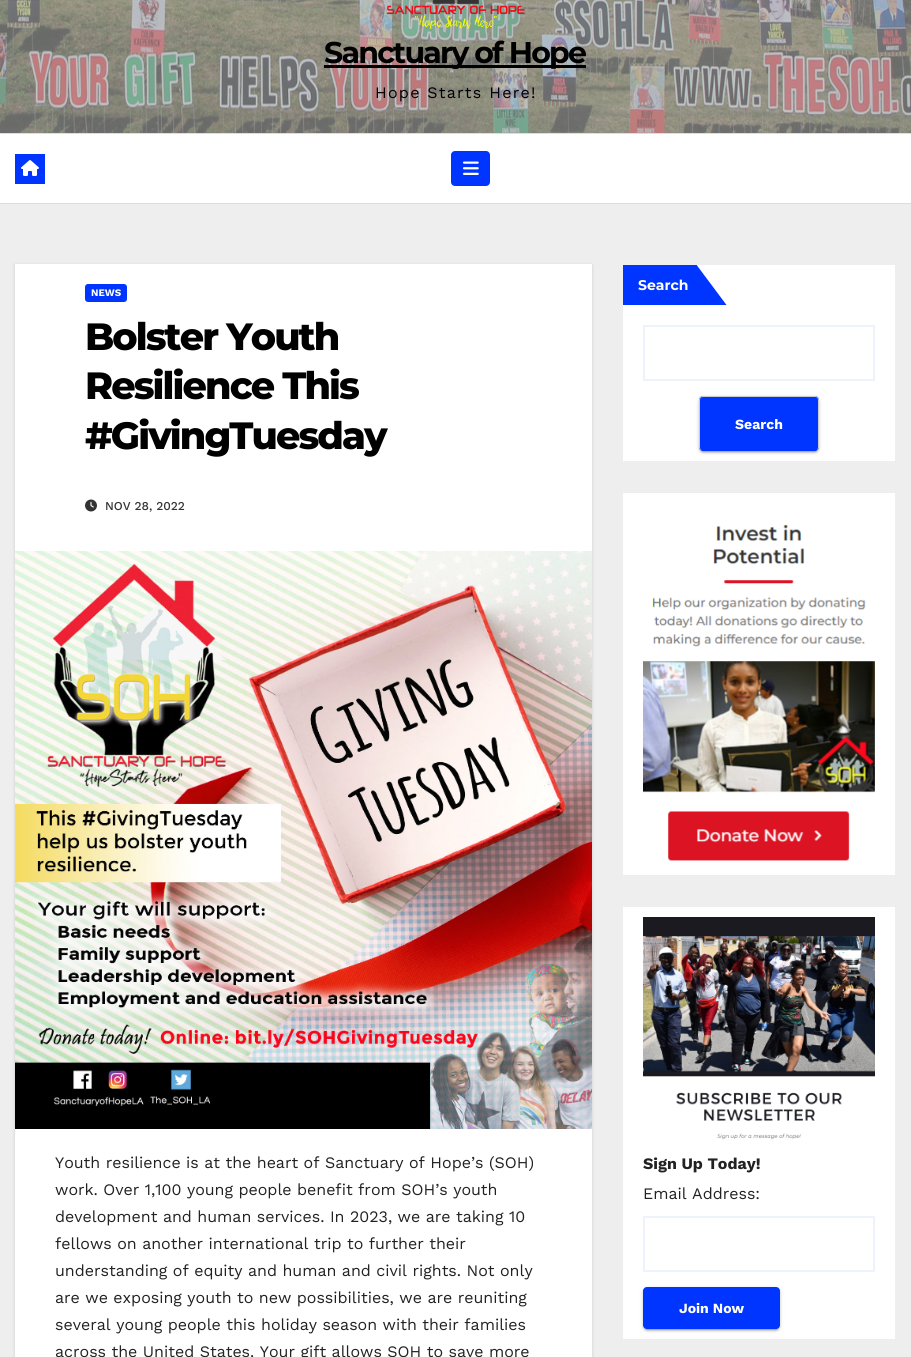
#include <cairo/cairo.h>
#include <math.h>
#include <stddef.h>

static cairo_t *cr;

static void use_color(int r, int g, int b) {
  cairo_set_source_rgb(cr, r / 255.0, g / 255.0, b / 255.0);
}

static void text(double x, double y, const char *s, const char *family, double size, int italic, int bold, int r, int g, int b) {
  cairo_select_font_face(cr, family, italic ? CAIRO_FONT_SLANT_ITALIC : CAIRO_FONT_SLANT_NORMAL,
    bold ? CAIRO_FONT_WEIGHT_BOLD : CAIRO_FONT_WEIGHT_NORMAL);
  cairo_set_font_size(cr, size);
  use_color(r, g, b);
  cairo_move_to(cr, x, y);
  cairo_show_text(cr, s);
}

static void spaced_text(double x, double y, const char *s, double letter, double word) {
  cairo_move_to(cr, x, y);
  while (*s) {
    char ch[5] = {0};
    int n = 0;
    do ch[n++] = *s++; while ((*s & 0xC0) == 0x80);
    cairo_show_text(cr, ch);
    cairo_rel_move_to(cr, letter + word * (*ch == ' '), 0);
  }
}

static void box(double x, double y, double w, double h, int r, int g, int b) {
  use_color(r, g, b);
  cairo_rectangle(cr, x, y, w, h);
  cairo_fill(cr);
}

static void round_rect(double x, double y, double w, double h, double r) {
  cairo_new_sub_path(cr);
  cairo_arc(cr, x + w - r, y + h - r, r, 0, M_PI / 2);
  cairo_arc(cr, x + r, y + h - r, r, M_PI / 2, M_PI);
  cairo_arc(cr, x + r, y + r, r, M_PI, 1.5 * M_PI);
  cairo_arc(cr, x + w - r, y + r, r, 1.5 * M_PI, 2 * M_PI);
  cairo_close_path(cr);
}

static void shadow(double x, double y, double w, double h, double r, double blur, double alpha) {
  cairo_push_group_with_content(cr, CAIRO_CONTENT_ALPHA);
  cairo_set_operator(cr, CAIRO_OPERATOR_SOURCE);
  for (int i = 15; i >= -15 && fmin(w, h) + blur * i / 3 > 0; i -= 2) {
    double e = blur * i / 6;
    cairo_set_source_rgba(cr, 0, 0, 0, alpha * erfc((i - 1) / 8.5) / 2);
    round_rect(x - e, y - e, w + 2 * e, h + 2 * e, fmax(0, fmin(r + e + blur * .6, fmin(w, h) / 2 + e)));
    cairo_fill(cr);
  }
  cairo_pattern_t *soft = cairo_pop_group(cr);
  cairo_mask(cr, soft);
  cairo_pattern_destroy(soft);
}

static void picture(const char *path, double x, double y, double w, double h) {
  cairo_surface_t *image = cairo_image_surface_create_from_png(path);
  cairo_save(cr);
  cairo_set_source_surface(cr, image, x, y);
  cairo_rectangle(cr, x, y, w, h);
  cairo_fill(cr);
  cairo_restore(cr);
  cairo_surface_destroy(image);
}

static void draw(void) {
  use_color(238, 238, 238);
  cairo_paint(cr);
  picture("img_01.png", 0, 0, 911, 133);
  cairo_set_source_rgba(cr, 0.647, 0.647, 0.647, 0.6);
  cairo_rectangle(cr, 0, 0, 911, 133);
  cairo_fill(cr);
  picture("img_02.png", 386, 0, 139, 29);
  box(324, 65, 262, 3, 0, 0, 0);
  box(0, 134, 911, 69, 255, 255, 255);
  box(0, 133, 911, 1, 221, 221, 221);
  box(0, 203, 911, 1, 221, 221, 221);
  box(15, 154, 30, 30, 0, 53, 255);
  picture("img_03.png", 21, 160, 18, 16);
  round_rect(451, 151, 39, 35, 4);
  cairo_fill(cr);
  picture("img_04.png", 463, 161, 16, 14);
  use_color(0, 0, 0);
  shadow(15, 265, 577, 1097, 0, 1.5, 0.15);
  box(15, 264, 577, 1093, 255, 255, 255);
  use_color(0, 53, 255);
  round_rect(85, 284, 42, 18, 3);
  cairo_fill(cr);
  picture("img_05.png", 85, 499, 12, 13);
  picture("img_06.png", 15, 551, 577, 578);
  box(623, 265, 272, 196, 255, 255, 255);
  box(623, 265, 74, 40, 0, 53, 255);
  cairo_new_path(cr);
  cairo_move_to(cr, 697, 265.5);
  cairo_line_to(cr, 697, 305);
  cairo_line_to(cr, 726.5, 305);
  cairo_close_path(cr);
  cairo_fill(cr);
  cairo_rectangle(cr, 644, 326, 230, 54);
  use_color(238, 243, 251);
  cairo_stroke(cr);
  use_color(0, 0, 0);
  shadow(699, 397, 120, 55, 4, 2.5, 0.12);
  shadow(701, 401, 116, 51, 2, 0.5, 0.2);
  shadow(699, 398, 120, 55, 4, 1, 0.14);
  use_color(0, 53, 255);
  round_rect(699, 396, 120, 55, 4);
  cairo_fill(cr);
  use_color(204, 204, 204);
  cairo_set_fill_rule(cr, CAIRO_FILL_RULE_EVEN_ODD);
  cairo_new_path(cr);
  cairo_move_to(cr, 703, 396);
  cairo_line_to(cr, 815, 396);
  cairo_curve_to(cr, 817, 396, 819, 398, 819, 400);
  cairo_line_to(cr, 819, 447);
  cairo_curve_to(cr, 819, 449, 817, 451, 815, 451);
  cairo_line_to(cr, 703, 451);
  cairo_curve_to(cr, 701, 451, 699, 449, 699, 447);
  cairo_line_to(cr, 699, 400);
  cairo_curve_to(cr, 699, 398, 701, 396, 703, 396);
  cairo_close_path(cr);
  cairo_move_to(cr, 703, 397);
  cairo_line_to(cr, 815, 397);
  cairo_curve_to(cr, 817, 397, 818, 398, 818, 400);
  cairo_line_to(cr, 818, 447);
  cairo_curve_to(cr, 818, 449, 817, 451, 815, 451);
  cairo_line_to(cr, 703, 451);
  cairo_curve_to(cr, 701, 451, 700, 449, 700, 447);
  cairo_line_to(cr, 700, 400);
  cairo_curve_to(cr, 700, 398, 701, 397, 703, 397);
  cairo_close_path(cr);
  cairo_fill(cr);
  box(623, 493, 272, 382, 255, 255, 255);
  picture("img_07.png", 643, 525, 232, 336);
  box(623, 907, 272, 432, 255, 255, 255);
  picture("img_08.png", 643, 917, 232, 223);
  cairo_rectangle(cr, 644, 1217, 230, 54);
  use_color(238, 243, 251);
  cairo_stroke(cr);
  use_color(0, 0, 0);
  shadow(643, 1288, 137, 42, 4, 2.5, 0.12);
  shadow(645, 1292, 133, 38, 2, 0.5, 0.2);
  shadow(643, 1289, 137, 42, 4, 1, 0.14);
  use_color(0, 53, 255);
  round_rect(643.5, 1287.5, 136, 41, 3.5);
  cairo_fill_preserve(cr);
  cairo_set_line_width(cr, 1);
  cairo_stroke(cr);
  cairo_select_font_face(cr, "Montserrat", CAIRO_FONT_SLANT_NORMAL, CAIRO_FONT_WEIGHT_BOLD);
  cairo_set_font_size(cr, 30);
  use_color(0, 0, 0);
  spaced_text(324, 63, "Sanctuary of Hope", -1.75, 0);
  cairo_select_font_face(cr, "Work Sans", CAIRO_FONT_SLANT_NORMAL, CAIRO_FONT_WEIGHT_NORMAL);
  cairo_set_font_size(cr, 16);
  spaced_text(375, 98, "Hope Starts Here!", 1.25, 0);
  text(91, 296, "NEWS", "Work Sans", 10, 0, 1, 255, 255, 255);
  cairo_select_font_face(cr, "Montserrat ExtraBold", CAIRO_FONT_SLANT_NORMAL, CAIRO_FONT_WEIGHT_NORMAL);
  cairo_set_font_size(cr, 38);
  use_color(0, 0, 0);
  spaced_text(85, 350, "Bolster Youth", -1.9, 0);
  spaced_text(85, 399, "Resilience This", -1.9, 0);
  spaced_text(85, 449, "#GivingTuesday", -1.9, 0);
  text(105, 510, "NOV 28, 2022", "Work Sans Medium", 12, 0, 0, 51, 51, 51);
  text(55, 1168, "Youth resilience is at the heart of Sanctuary of Hope’s (SOH)", "Work Sans", 16, 0, 0, 34, 34, 34);
  text(55, 1195, "work. Over 1,100 young people benefit from SOH’s youth", "Work Sans", 16, 0, 0, 34, 34, 34);
  text(55, 1222, "development and human services. In 2023, we are taking 10", "Work Sans", 16, 0, 0, 34, 34, 34);
  text(55, 1249, "fellows on another international trip to further their", "Work Sans", 16, 0, 0, 34, 34, 34);
  text(55, 1276, "understanding of equity and human and civil rights. Not only", "Work Sans", 16, 0, 0, 34, 34, 34);
  text(55, 1303, "are we exposing youth to new possibilities, we are reuniting", "Work Sans", 16, 0, 0, 34, 34, 34);
  text(55, 1330, "several young people this holiday season with their families", "Work Sans", 16, 0, 0, 34, 34, 34);
  text(55, 1357, "across the United States. Your gift allows SOH to save more", "Work Sans", 16, 0, 0, 34, 34, 34);
  text(638, 290, "Search", "Montserrat", 14, 0, 1, 255, 255, 255);
  text(735, 429, "Search", "Work Sans", 14, 0, 1, 255, 255, 255);
  text(643, 1169, "Sign Up Today!", "Work Sans", 16, 0, 1, 34, 34, 34);
  text(643, 1199, "Email Address:", "Work Sans", 16, 0, 0, 34, 34, 34);
  text(679, 1313, "Join Now", "Work Sans", 14, 0, 1, 255, 255, 255);
}

int main(void) {
  cairo_surface_t *surface = cairo_image_surface_create(CAIRO_FORMAT_RGB24, 911, 1357);
  cr = cairo_create(surface);
  cairo_font_options_t *options = cairo_font_options_create();
  cairo_font_options_set_hint_metrics(options, CAIRO_HINT_METRICS_OFF);
  cairo_font_options_set_hint_style(options, CAIRO_HINT_STYLE_NONE);
  cairo_set_font_options(cr, options);
  cairo_set_miter_limit(cr, 4);
  draw();
  cairo_surface_write_to_png(surface, "out.png");
  cairo_font_options_destroy(options);
  cairo_destroy(cr);
  cairo_surface_destroy(surface);
  return 0;
}
